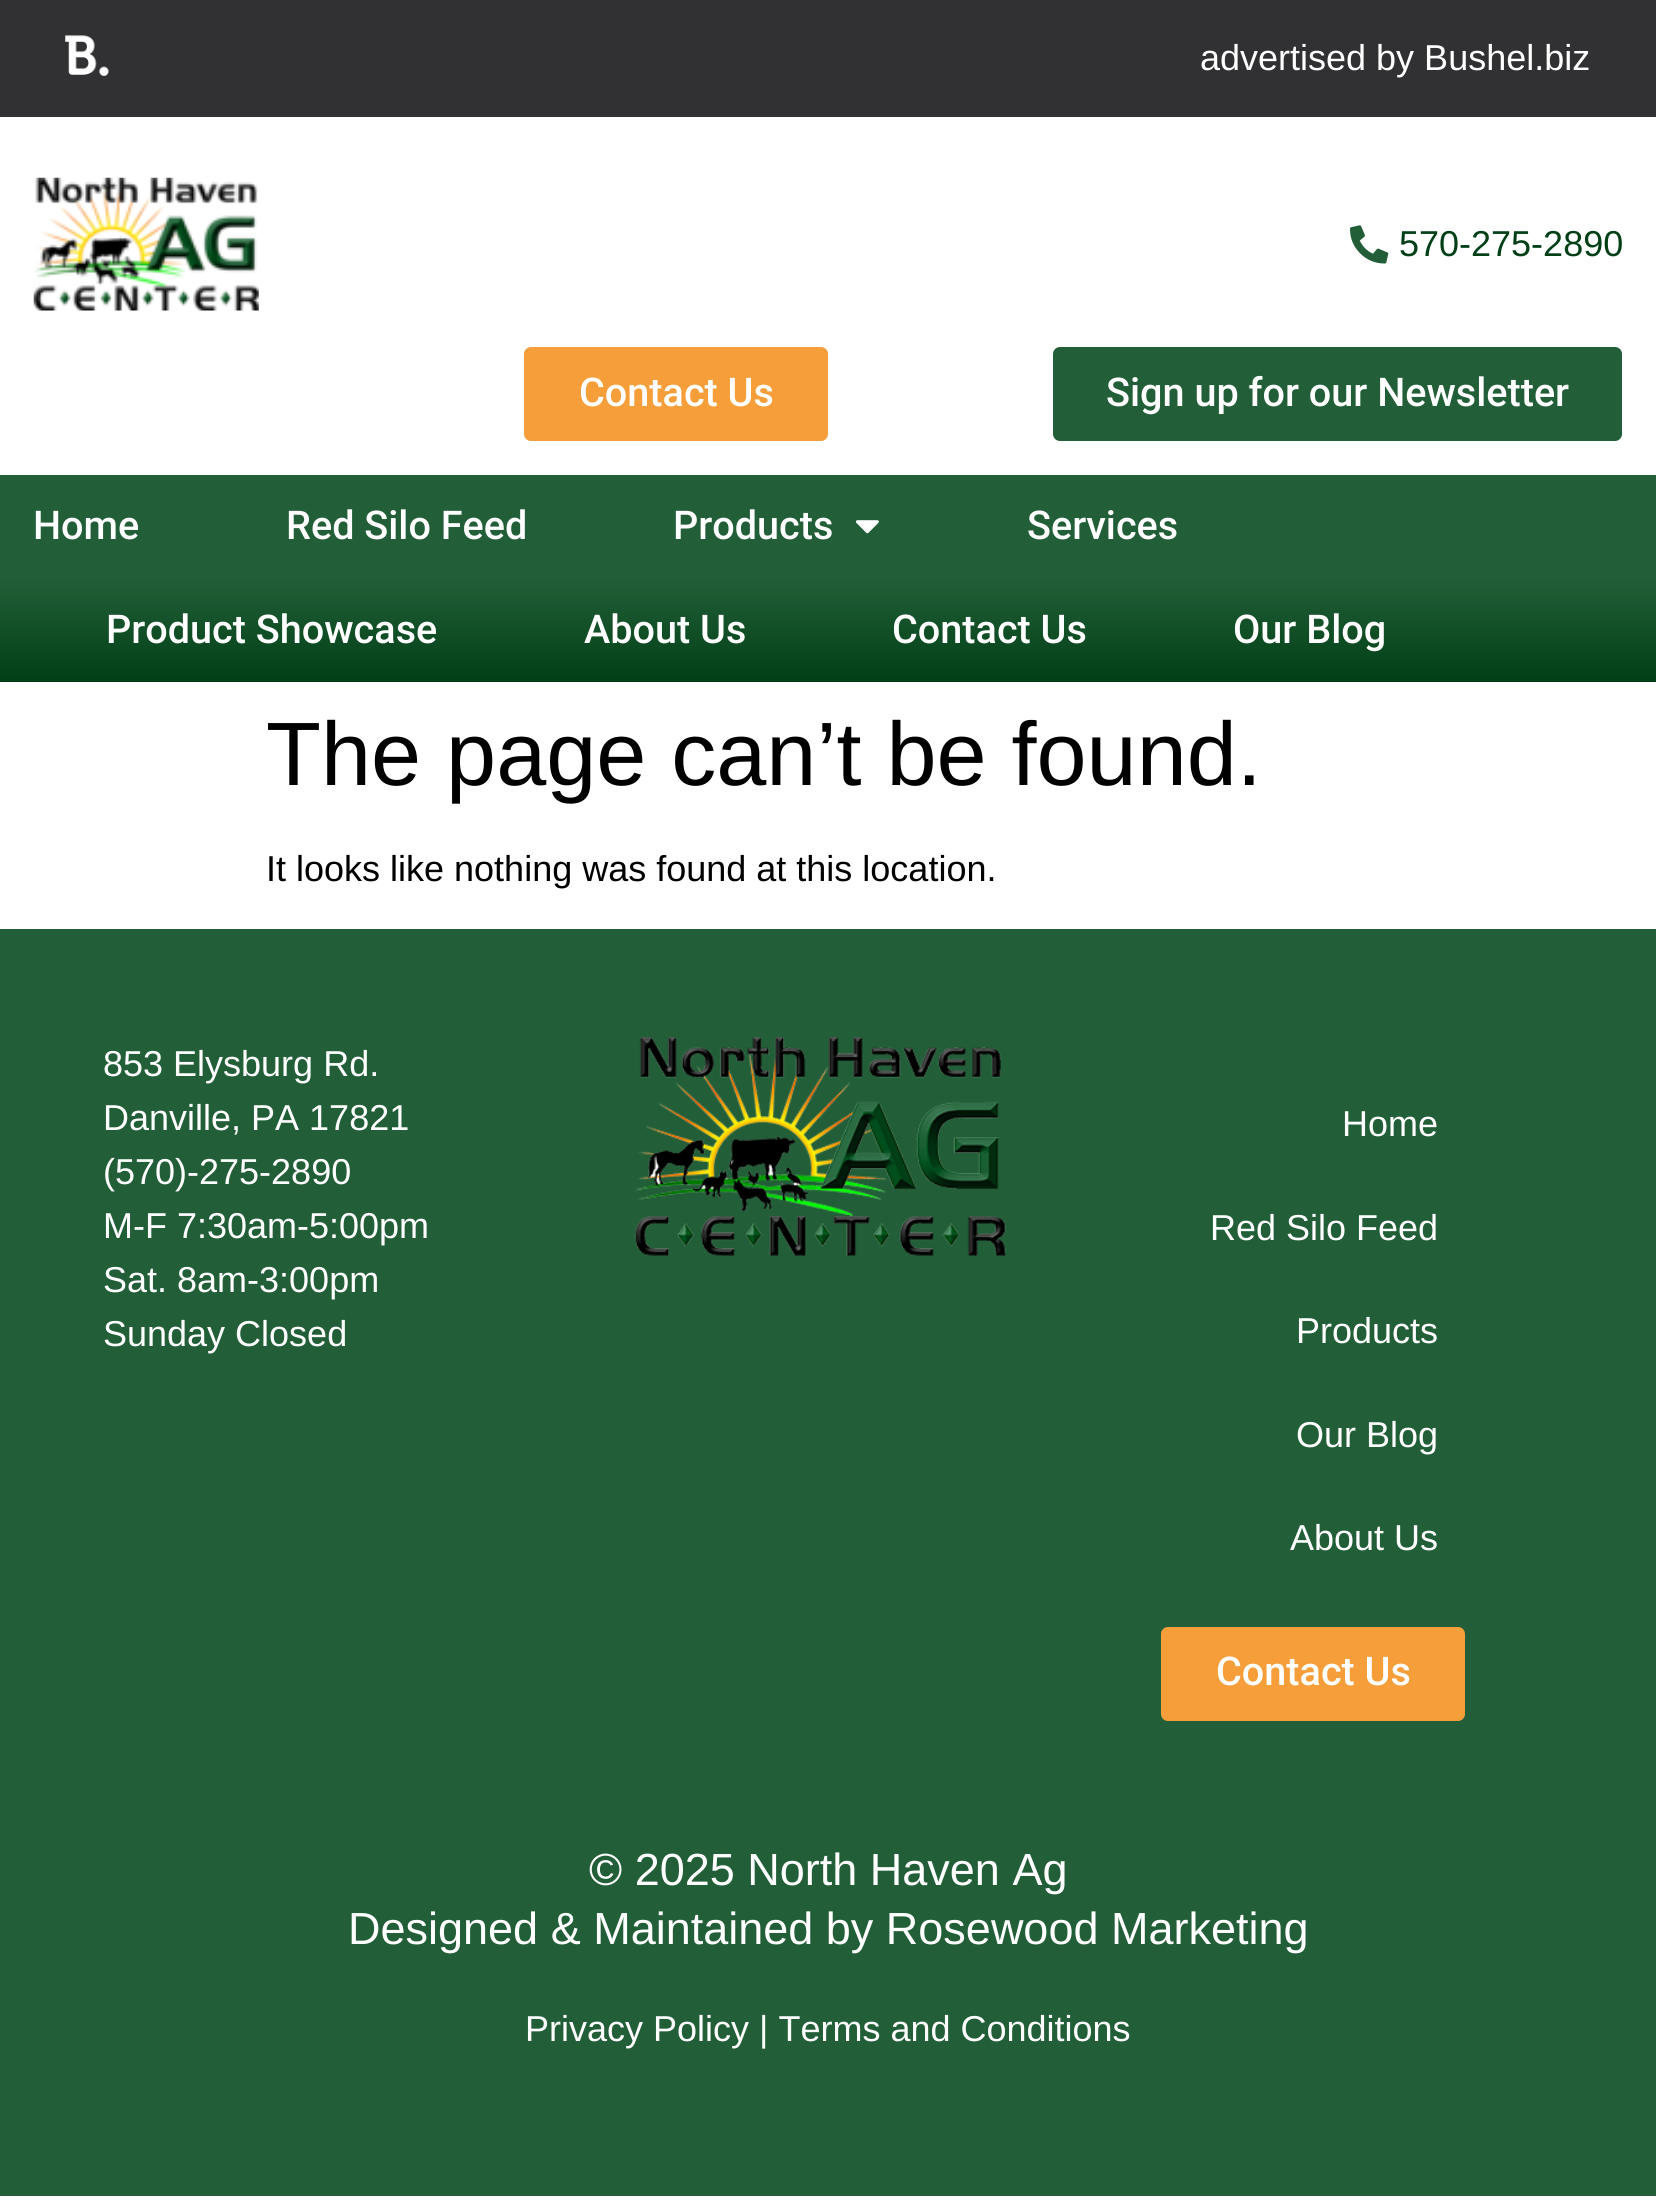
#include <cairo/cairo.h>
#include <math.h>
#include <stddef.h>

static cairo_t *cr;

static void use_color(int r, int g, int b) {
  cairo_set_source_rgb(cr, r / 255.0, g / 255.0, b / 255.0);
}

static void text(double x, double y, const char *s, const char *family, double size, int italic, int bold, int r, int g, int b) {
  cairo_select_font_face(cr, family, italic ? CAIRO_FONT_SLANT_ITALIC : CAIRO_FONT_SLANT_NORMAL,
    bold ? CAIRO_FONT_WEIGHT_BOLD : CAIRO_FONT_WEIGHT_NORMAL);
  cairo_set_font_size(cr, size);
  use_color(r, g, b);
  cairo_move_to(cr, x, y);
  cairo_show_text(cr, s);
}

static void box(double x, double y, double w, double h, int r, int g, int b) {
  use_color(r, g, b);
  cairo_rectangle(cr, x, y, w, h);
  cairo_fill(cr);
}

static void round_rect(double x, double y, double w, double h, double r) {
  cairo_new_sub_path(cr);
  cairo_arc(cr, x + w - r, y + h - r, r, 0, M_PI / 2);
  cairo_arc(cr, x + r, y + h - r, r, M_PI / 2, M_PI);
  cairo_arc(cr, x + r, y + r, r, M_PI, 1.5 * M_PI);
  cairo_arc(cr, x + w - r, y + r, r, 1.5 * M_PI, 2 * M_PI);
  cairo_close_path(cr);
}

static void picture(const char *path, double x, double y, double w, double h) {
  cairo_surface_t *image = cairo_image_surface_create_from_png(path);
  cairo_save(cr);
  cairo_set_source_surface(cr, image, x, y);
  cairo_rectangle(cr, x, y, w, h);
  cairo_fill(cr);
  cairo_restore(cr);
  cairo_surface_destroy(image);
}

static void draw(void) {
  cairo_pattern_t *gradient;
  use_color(255, 255, 255);
  cairo_paint(cr);
  box(0, 0, 1656, 117, 49, 49, 51);
  picture("img_01.png", 65, 35, 44, 41);
  picture("img_02.png", 33, 177, 226, 134);
  picture("img_03.png", 1350, 225, 39, 39);
  use_color(246, 158, 58);
  round_rect(524, 347, 304, 94, 7);
  cairo_fill(cr);
  use_color(34, 95, 56);
  round_rect(1053, 347, 569, 94, 7);
  cairo_fill(cr);
  gradient = cairo_pattern_create_linear(828, 475, 828, 682);
  cairo_pattern_add_color_stop_rgba(gradient, 0.5, 0.133, 0.373, 0.22, 1);
  cairo_pattern_add_color_stop_rgba(gradient, 1, 0.004, 0.247, 0.086, 1);
  cairo_set_source(cr, gradient);
  cairo_pattern_destroy(gradient);
  cairo_rectangle(cr, 0, 475, 1656, 207);
  cairo_fill(cr);
  picture("img_04.png", 855, 520, 24, 14);
  box(0, 929, 1656, 1267, 34, 95, 56);
  picture("img_05.png", 634, 1037, 372, 219);
  use_color(246, 158, 58);
  round_rect(1161, 1627, 304, 94, 7);
  cairo_fill(cr);
  text(1200, 70, "advertised by Bushel.biz", "Liberation Sans", 36, 0, 0, 255, 255, 255);
  text(1399, 256, "570-275-2890", "Liberation Sans", 36, 0, 0, 1, 63, 22);
  text(579, 406, "Contact Us", "Roboto Medium", 39.6, 0, 0, 255, 255, 255);
  text(1106, 406, "Sign up for our Newsletter", "Roboto Medium", 39.6, 0, 0, 255, 255, 255);
  text(33, 539, "Home", "Roboto Medium", 39.6, 0, 0, 255, 255, 255);
  text(286, 539, "Red Silo Feed", "Roboto Medium", 39.6, 0, 0, 255, 255, 255);
  text(673, 539, "Products", "Roboto Medium", 39.6, 0, 0, 255, 255, 255);
  text(1027, 539, "Services", "Roboto Medium", 39.6, 0, 0, 255, 255, 255);
  text(106, 643, "Product Showcase", "Roboto Medium", 39.6, 0, 0, 255, 255, 255);
  text(584, 643, "About Us", "Roboto Medium", 39.6, 0, 0, 255, 255, 255);
  text(892, 643, "Contact Us", "Roboto Medium", 39.6, 0, 0, 255, 255, 255);
  text(1233, 643, "Our Blog", "Roboto Medium", 39.6, 0, 0, 255, 255, 255);
  text(266, 785, "The page can’t be found.", "Liberation Sans", 90, 0, 0, 0, 0, 0);
  text(266, 881, "It looks like nothing was found at this location.", "Liberation Sans", 36, 0, 0, 0, 0, 0);
  text(103, 1076, "853 Elysburg Rd.", "Liberation Sans", 36, 0, 0, 255, 255, 255);
  text(103, 1130, "Danville, PA 17821", "Liberation Sans", 36, 0, 0, 255, 255, 255);
  text(103, 1184, "(570)-275-2890", "Liberation Sans", 36, 0, 0, 255, 255, 255);
  text(103, 1238, "M-F 7:30am-5:00pm", "Liberation Sans", 36, 0, 0, 255, 255, 255);
  text(103, 1292, "Sat. 8am-3:00pm", "Liberation Sans", 36, 0, 0, 255, 255, 255);
  text(103, 1346, "Sunday Closed", "Liberation Sans", 36, 0, 0, 255, 255, 255);
  text(1342, 1136, "Home", "Liberation Sans", 36, 0, 0, 255, 255, 255);
  text(1210, 1240, "Red Silo Feed", "Liberation Sans", 36, 0, 0, 255, 255, 255);
  text(1296, 1343, "Products", "Liberation Sans", 36, 0, 0, 255, 255, 255);
  text(1296, 1447, "Our Blog", "Liberation Sans", 36, 0, 0, 255, 255, 255);
  text(1290, 1550, "About Us", "Liberation Sans", 36, 0, 0, 255, 255, 255);
  text(1216, 1685, "Contact Us", "Roboto Medium", 39.6, 0, 0, 255, 255, 255);
  text(589, 1885, "© 2025 North Haven Ag", "Liberation Sans", 45, 0, 0, 255, 255, 255);
  text(348, 1944, "Designed & Maintained by Rosewood Marketing", "Liberation Sans", 45, 0, 0, 255, 255, 255);
  text(525, 2041, "Privacy Policy | Terms and Conditions", "Liberation Sans", 36, 0, 0, 255, 255, 255);
}

int main(void) {
  cairo_surface_t *surface = cairo_image_surface_create(CAIRO_FORMAT_RGB24, 1656, 2211);
  cr = cairo_create(surface);
  cairo_font_options_t *options = cairo_font_options_create();
  cairo_font_options_set_hint_metrics(options, CAIRO_HINT_METRICS_OFF);
  cairo_font_options_set_hint_style(options, CAIRO_HINT_STYLE_NONE);
  cairo_set_font_options(cr, options);
  cairo_set_miter_limit(cr, 4);
  draw();
  cairo_surface_write_to_png(surface, "out.png");
  cairo_font_options_destroy(options);
  cairo_destroy(cr);
  cairo_surface_destroy(surface);
  return 0;
}
